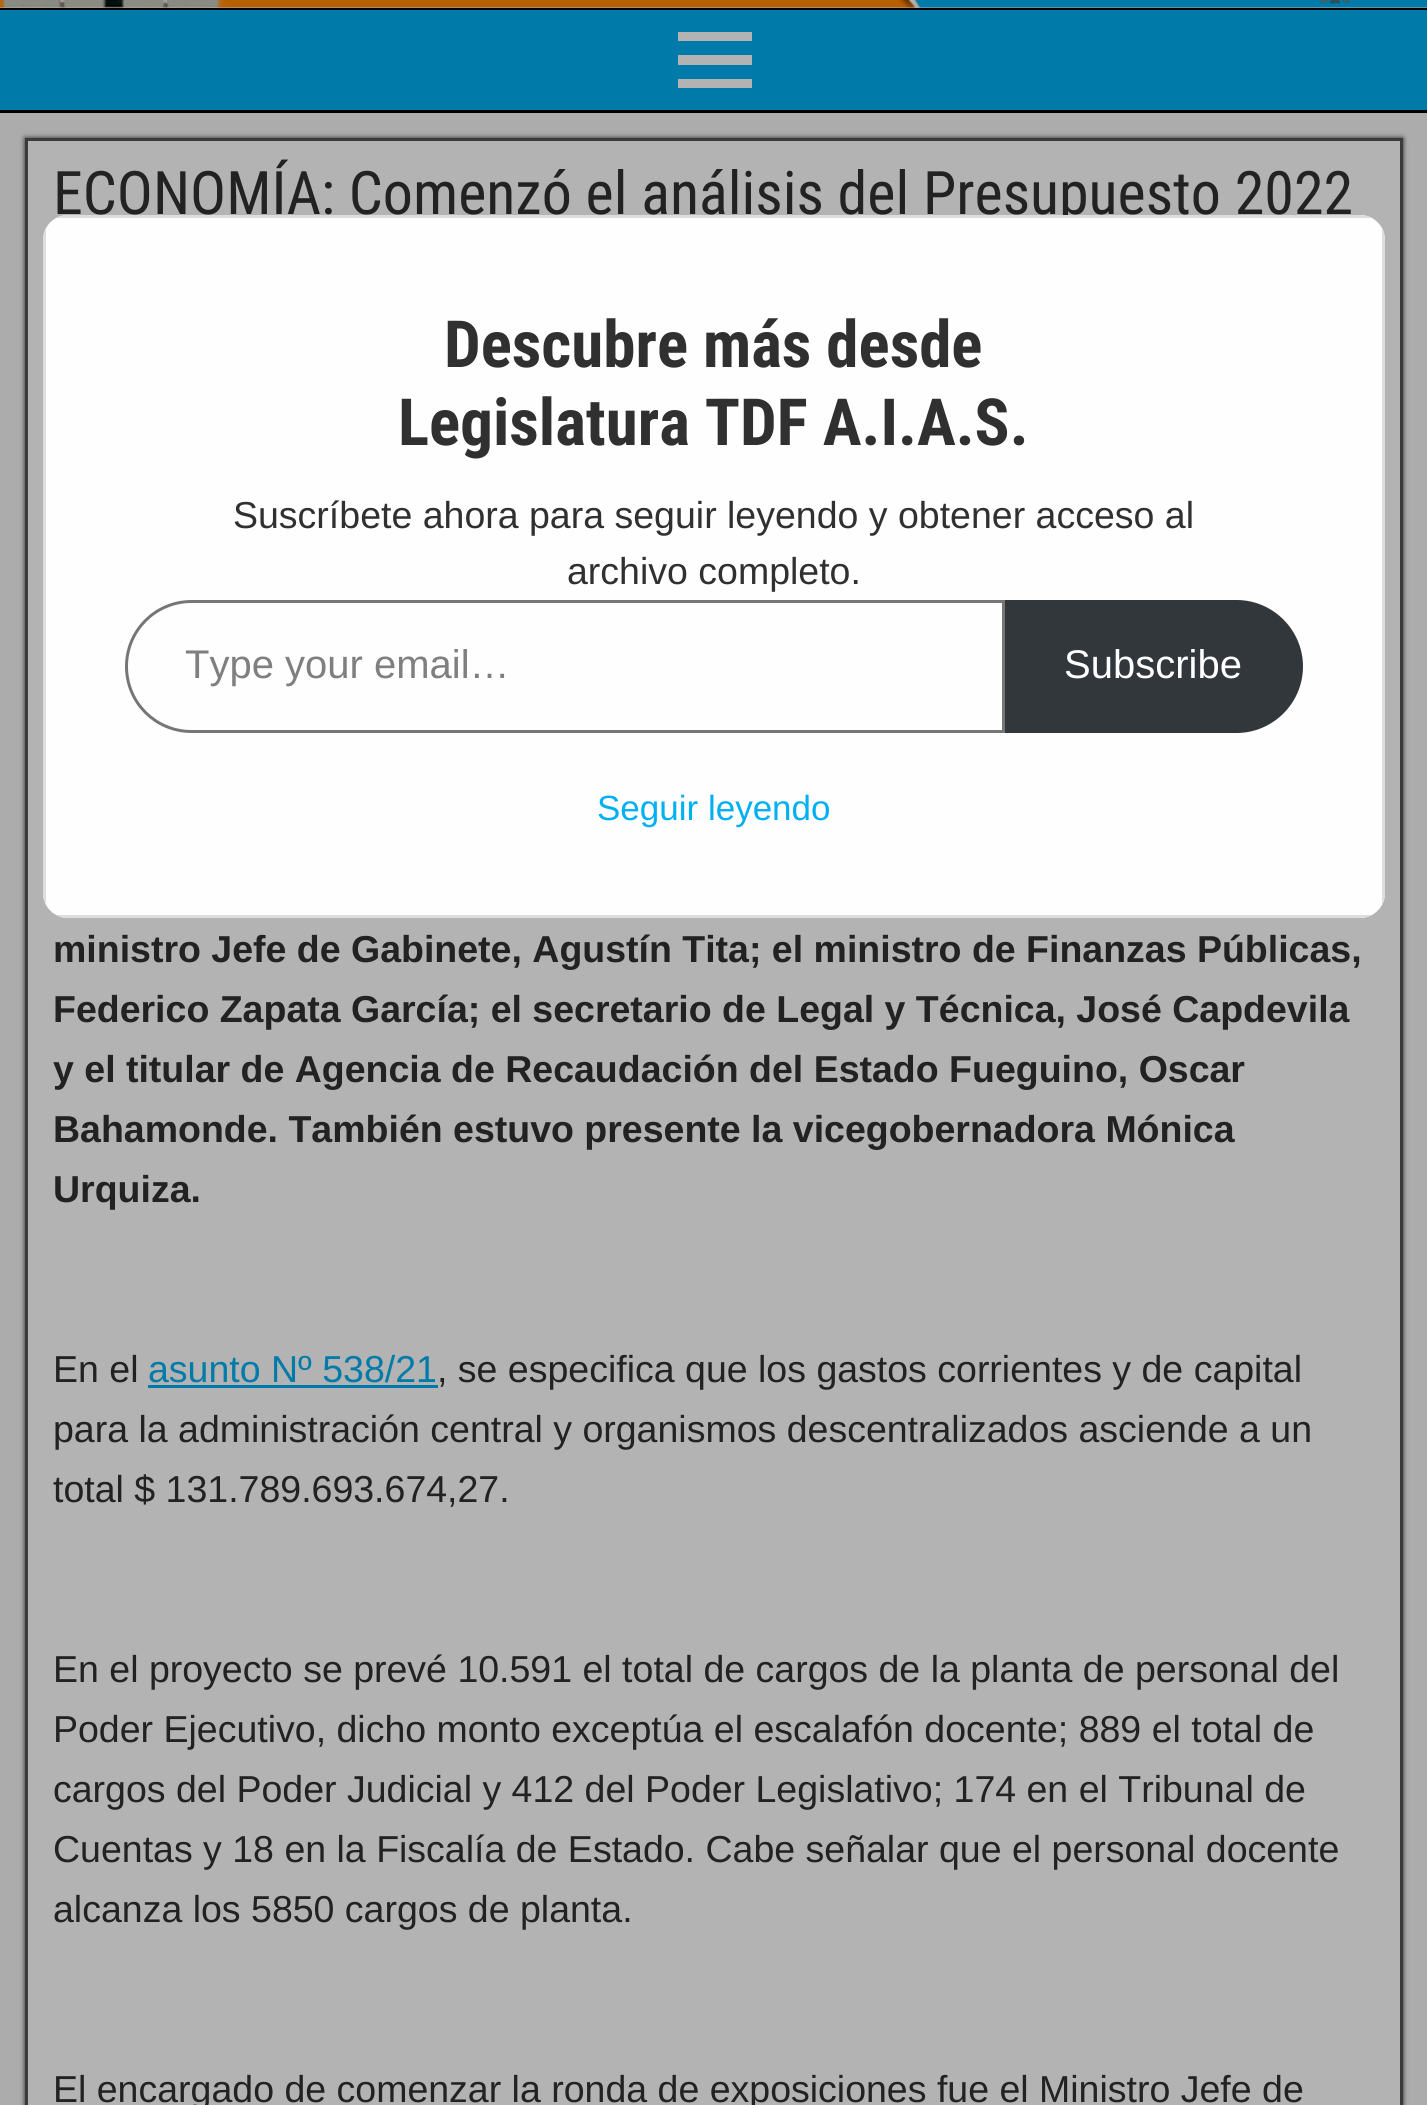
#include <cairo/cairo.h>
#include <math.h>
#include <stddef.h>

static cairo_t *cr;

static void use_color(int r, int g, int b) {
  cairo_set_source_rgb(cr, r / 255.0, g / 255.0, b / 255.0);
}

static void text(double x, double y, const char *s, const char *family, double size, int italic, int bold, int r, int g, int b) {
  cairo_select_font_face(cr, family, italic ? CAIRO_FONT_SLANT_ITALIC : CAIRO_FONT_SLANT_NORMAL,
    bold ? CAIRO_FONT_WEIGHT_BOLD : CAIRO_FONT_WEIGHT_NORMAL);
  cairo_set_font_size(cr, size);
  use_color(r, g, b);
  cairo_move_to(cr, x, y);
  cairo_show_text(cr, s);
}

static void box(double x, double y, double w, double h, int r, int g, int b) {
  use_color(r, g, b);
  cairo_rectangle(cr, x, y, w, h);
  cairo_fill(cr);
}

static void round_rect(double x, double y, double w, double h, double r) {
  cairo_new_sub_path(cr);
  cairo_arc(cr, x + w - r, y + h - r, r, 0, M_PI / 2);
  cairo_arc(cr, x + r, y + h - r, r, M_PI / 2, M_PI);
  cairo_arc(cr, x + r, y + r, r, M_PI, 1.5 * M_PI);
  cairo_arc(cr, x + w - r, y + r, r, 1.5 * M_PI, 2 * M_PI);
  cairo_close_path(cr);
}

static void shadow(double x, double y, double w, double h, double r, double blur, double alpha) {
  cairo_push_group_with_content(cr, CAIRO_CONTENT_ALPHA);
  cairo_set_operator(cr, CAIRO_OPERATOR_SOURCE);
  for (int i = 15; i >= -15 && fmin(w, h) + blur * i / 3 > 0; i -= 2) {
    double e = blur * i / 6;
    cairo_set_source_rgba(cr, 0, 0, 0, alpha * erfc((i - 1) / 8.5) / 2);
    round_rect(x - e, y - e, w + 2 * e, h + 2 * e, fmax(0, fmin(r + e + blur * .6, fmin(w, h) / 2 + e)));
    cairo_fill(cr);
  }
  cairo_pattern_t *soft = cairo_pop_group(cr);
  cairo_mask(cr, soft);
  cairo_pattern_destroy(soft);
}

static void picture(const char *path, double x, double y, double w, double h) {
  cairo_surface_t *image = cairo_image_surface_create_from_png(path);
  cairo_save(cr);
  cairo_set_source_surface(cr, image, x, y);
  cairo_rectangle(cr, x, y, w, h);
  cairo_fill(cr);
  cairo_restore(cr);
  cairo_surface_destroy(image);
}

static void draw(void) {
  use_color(179, 179, 179);
  cairo_paint(cr);
  box(0, 8, 1427, 2, 0, 0, 0);
  picture("img_01.png", 0, 0, 1427, 8);
  box(0, 10, 1427, 100, 0, 123, 169);
  box(0, 110, 1427, 3, 0, 0, 0);
  use_color(179, 179, 179);
  cairo_new_path(cr);
  cairo_move_to(cr, 678, 88);
  cairo_line_to(cr, 678, 79);
  cairo_line_to(cr, 752, 79);
  cairo_line_to(cr, 752, 88);
  cairo_close_path(cr);
  cairo_move_to(cr, 678, 32);
  cairo_line_to(cr, 752, 32);
  cairo_line_to(cr, 752, 41);
  cairo_line_to(cr, 678, 41);
  cairo_close_path(cr);
  cairo_move_to(cr, 678, 65);
  cairo_line_to(cr, 678, 55);
  cairo_line_to(cr, 752, 55);
  cairo_line_to(cr, 752, 65);
  cairo_close_path(cr);
  cairo_fill(cr);
  box(0, 113, 1427, 1992, 172, 172, 172);
  use_color(36, 36, 36);
  shadow(25, 138, 1378, 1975, 0, 2.5, 1);
  use_color(179, 179, 179);
  cairo_rectangle(cr, 26.5, 139.5, 1375, 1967);
  cairo_fill_preserve(cr);
  use_color(59, 59, 59);
  cairo_set_line_width(cr, 3);
  cairo_stroke(cr);
  box(148, 1385, 290, 3, 0, 123, 169);
  text(53, 214, "ECONOMÍA: Comenzó el análisis del Presupuesto 2022", "Roboto Condensed", 60, 0, 0, 34, 34, 34);
  text(53, 962, "ministro Jefe de Gabinete, Agustín Tita; el ministro de Finanzas Públicas,", "Arimo", 37.5, 0, 1, 34, 34, 34);
  text(53, 1022, "Federico Zapata García; el secretario de Legal y Técnica, José Capdevila", "Arimo", 37.5, 0, 1, 34, 34, 34);
  text(53, 1082, "y el titular de Agencia de Recaudación del Estado Fueguino, Oscar", "Arimo", 37.5, 0, 1, 34, 34, 34);
  text(53, 1142, "Bahamonde. También estuvo presente la vicegobernadora Mónica", "Arimo", 37.5, 0, 1, 34, 34, 34);
  text(53, 1202, "Urquiza.", "Arimo", 37.5, 0, 1, 34, 34, 34);
  text(53, 1382, "En el", "Arimo", 37.5, 0, 0, 34, 34, 34);
  text(148, 1382, "asunto Nº 538/21", "Arimo", 37.5, 0, 0, 0, 123, 169);
  text(437, 1382, ", se especifica que los gastos corrientes y de capital", "Arimo", 37.5, 0, 0, 34, 34, 34);
  text(53, 1442, "para la administración central y organismos descentralizados asciende a un", "Arimo", 37.5, 0, 0, 34, 34, 34);
  text(53, 1502, "total $ 131.789.693.674,27.", "Arimo", 37.5, 0, 0, 34, 34, 34);
  text(53, 1682, "En el proyecto se prevé 10.591 el total de cargos de la planta de personal del", "Arimo", 37.5, 0, 0, 34, 34, 34);
  text(53, 1742, "Poder Ejecutivo, dicho monto exceptúa el escalafón docente; 889 el total de", "Arimo", 37.5, 0, 0, 34, 34, 34);
  text(53, 1802, "cargos del Poder Judicial y 412 del Poder Legislativo; 174 en el Tribunal de", "Arimo", 37.5, 0, 0, 34, 34, 34);
  text(53, 1862, "Cuentas y 18 en la Fiscalía de Estado. Cabe señalar que el personal docente", "Arimo", 37.5, 0, 0, 34, 34, 34);
  text(53, 1922, "alcanza los 5850 cargos de planta.", "Arimo", 37.5, 0, 0, 34, 34, 34);
  text(53, 2102, "El encargado de comenzar la ronda de exposiciones fue el Ministro Jefe de", "Arimo", 37.5, 0, 0, 34, 34, 34);
  use_color(254, 254, 254);
  round_rect(43, 215, 1342, 703, 25);
  cairo_fill(cr);
  use_color(221, 221, 221);
  cairo_set_fill_rule(cr, CAIRO_FILL_RULE_EVEN_ODD);
  cairo_new_path(cr);
  cairo_move_to(cr, 43, 240);
  cairo_line_to(cr, 43, 893);
  cairo_curve_to(cr, 43, 897, 44, 901, 46, 905);
  cairo_line_to(cr, 46, 228);
  cairo_curve_to(cr, 44, 232, 43, 236, 43, 240);
  cairo_close_path(cr);
  cairo_move_to(cr, 68, 215);
  cairo_curve_to(cr, 64, 215, 60, 216, 56, 218);
  cairo_line_to(cr, 1372, 218);
  cairo_curve_to(cr, 1368, 216, 1364, 215, 1360, 215);
  cairo_close_path(cr);
  cairo_move_to(cr, 1385, 240);
  cairo_curve_to(cr, 1385, 236, 1384, 232, 1382, 228);
  cairo_line_to(cr, 1382, 905);
  cairo_curve_to(cr, 1384, 901, 1385, 897, 1385, 893);
  cairo_close_path(cr);
  cairo_move_to(cr, 1360, 918);
  cairo_curve_to(cr, 1364, 918, 1368, 917, 1372, 915);
  cairo_line_to(cr, 56, 915);
  cairo_curve_to(cr, 60, 917, 64, 918, 68, 918);
  cairo_close_path(cr);
  cairo_fill(cr);
  text(444, 367, "Descubre más desde", "Roboto Condensed", 65, 0, 1, 48, 48, 48);
  text(398, 445, "Legislatura TDF A.I.A.S.", "Roboto Condensed", 65, 0, 1, 48, 48, 48);
  text(233, 528, "Suscríbete ahora para seguir leyendo y obtener acceso al", "Liberation Sans", 37.5, 0, 0, 48, 48, 48);
  text(567, 584, "archivo completo.", "Liberation Sans", 37.5, 0, 0, 48, 48, 48);
  cairo_new_path(cr);
  cairo_move_to(cr, 191.5, 601.5);
  cairo_line_to(cr, 1003.5, 601.5);
  cairo_line_to(cr, 1003.5, 731.5);
  cairo_line_to(cr, 191.5, 731.5);
  cairo_curve_to(cr, 155.5, 731.5, 126.5, 702.5, 126.5, 666.5);
  cairo_curve_to(cr, 126.5, 630.5, 155.5, 601.5, 191.5, 601.5);
  cairo_close_path(cr);
  use_color(118, 118, 118);
  cairo_stroke(cr);
  text(185, 678, "Type your email…", "Liberation Sans", 40, 0, 0, 127, 127, 127);
  use_color(50, 55, 60);
  cairo_new_path(cr);
  cairo_move_to(cr, 1005, 600);
  cairo_line_to(cr, 1236.5, 600);
  cairo_curve_to(cr, 1273, 600, 1303, 630, 1303, 666.5);
  cairo_curve_to(cr, 1303, 703, 1273, 733, 1236.5, 733);
  cairo_line_to(cr, 1005, 733);
  cairo_close_path(cr);
  cairo_fill(cr);
  text(1064, 678, "Subscribe", "Liberation Sans", 40, 0, 0, 255, 255, 255);
  text(597, 820, "Seguir leyendo", "Liberation Sans", 35, 0, 0, 0, 176, 242);
}

int main(void) {
  cairo_surface_t *surface = cairo_image_surface_create(CAIRO_FORMAT_RGB24, 1427, 2105);
  cr = cairo_create(surface);
  cairo_font_options_t *options = cairo_font_options_create();
  cairo_font_options_set_hint_metrics(options, CAIRO_HINT_METRICS_OFF);
  cairo_font_options_set_hint_style(options, CAIRO_HINT_STYLE_NONE);
  cairo_set_font_options(cr, options);
  cairo_set_miter_limit(cr, 4);
  draw();
  cairo_surface_write_to_png(surface, "out.png");
  cairo_font_options_destroy(options);
  cairo_destroy(cr);
  cairo_surface_destroy(surface);
  return 0;
}
